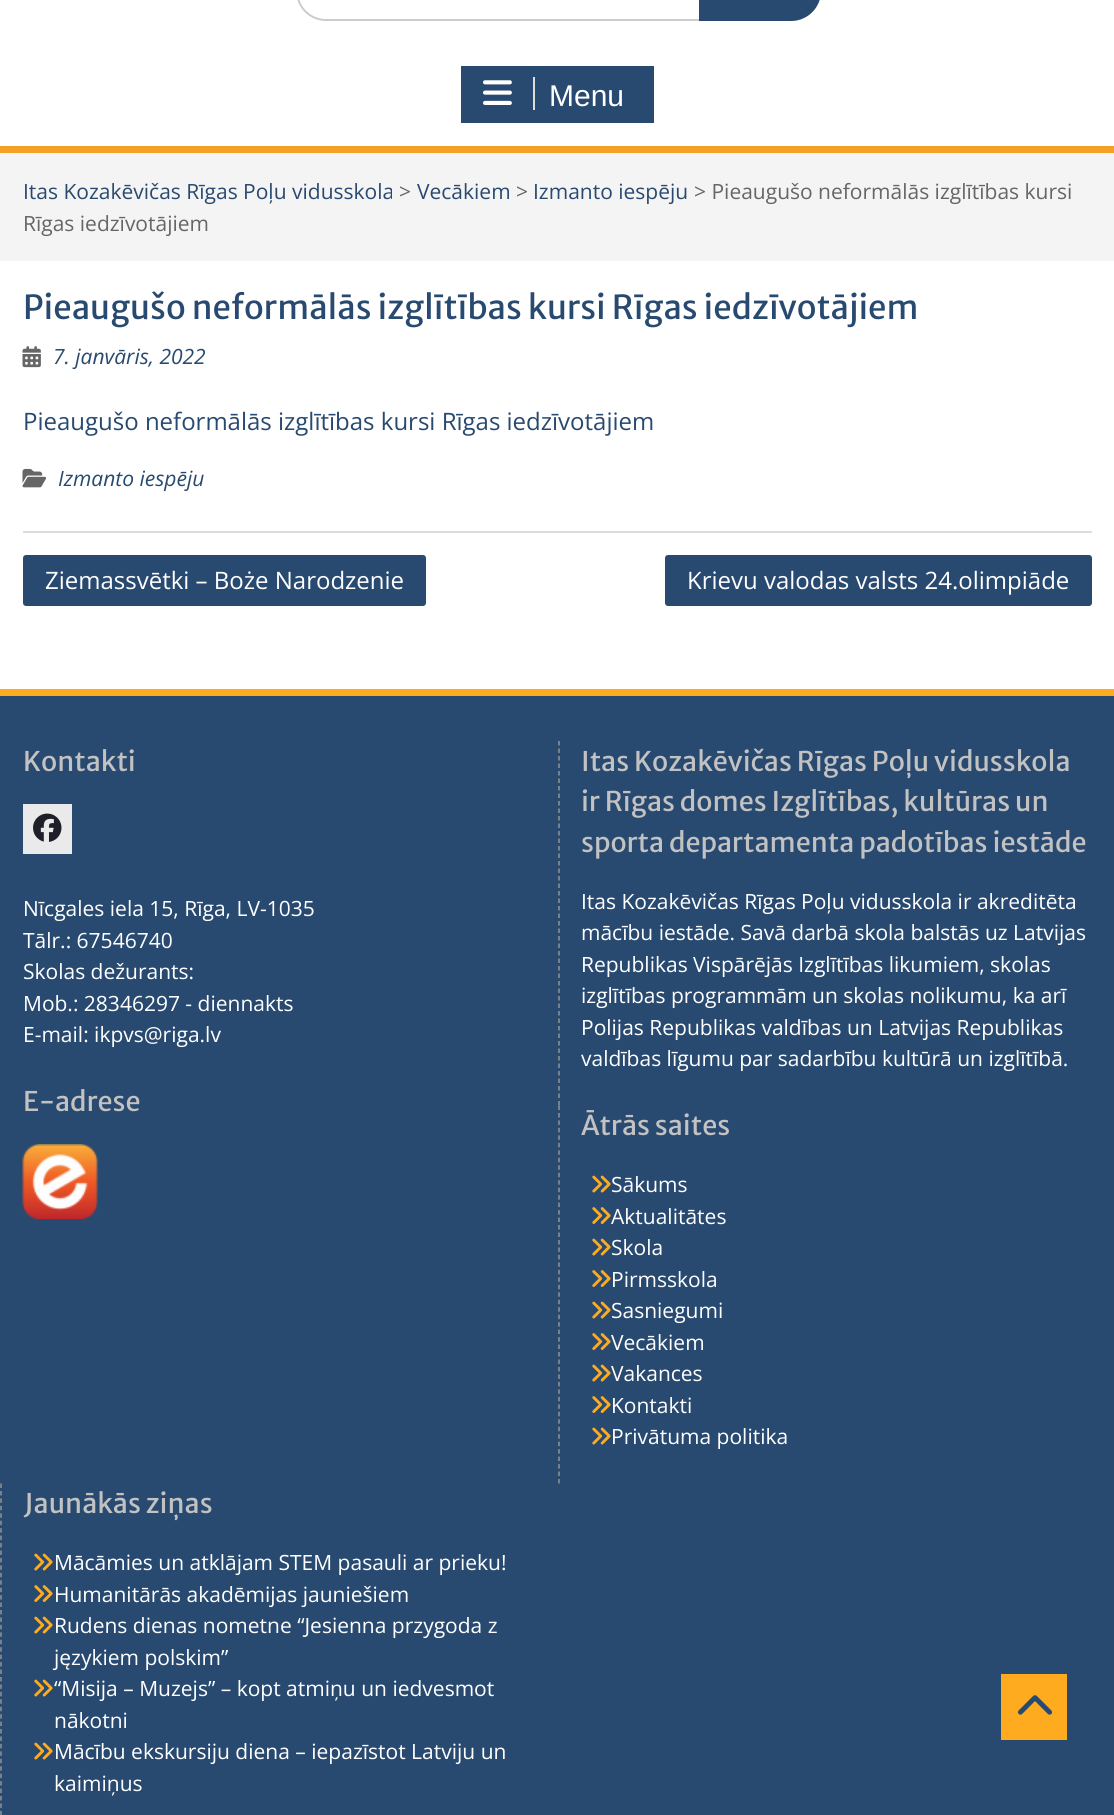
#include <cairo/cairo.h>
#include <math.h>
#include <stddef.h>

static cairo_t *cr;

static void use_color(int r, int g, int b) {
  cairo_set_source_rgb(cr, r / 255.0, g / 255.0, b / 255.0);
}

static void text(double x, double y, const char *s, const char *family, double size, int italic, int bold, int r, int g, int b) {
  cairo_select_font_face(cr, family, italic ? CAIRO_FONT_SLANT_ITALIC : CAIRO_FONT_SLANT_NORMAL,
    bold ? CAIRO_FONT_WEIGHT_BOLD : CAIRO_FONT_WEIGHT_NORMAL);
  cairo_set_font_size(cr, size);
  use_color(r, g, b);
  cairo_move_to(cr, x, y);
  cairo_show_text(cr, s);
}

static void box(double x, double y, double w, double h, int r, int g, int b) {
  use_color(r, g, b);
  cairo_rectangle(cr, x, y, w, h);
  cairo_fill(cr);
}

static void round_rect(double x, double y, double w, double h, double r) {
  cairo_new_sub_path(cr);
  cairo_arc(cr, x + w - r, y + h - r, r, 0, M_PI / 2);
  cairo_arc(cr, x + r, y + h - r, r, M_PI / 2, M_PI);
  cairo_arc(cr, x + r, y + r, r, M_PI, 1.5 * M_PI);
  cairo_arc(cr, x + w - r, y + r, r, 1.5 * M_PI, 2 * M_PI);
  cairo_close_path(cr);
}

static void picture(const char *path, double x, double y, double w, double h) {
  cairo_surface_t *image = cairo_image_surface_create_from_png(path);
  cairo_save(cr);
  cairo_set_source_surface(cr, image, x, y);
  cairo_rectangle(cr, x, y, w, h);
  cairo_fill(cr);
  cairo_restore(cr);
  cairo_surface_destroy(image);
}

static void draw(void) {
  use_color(255, 255, 255);
  cairo_paint(cr);
  round_rect(297, -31, 523, 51, 29);
  use_color(204, 204, 204);
  cairo_stroke(cr);
  use_color(41, 74, 112);
  cairo_new_path(cr);
  cairo_move_to(cr, 699, -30);
  cairo_line_to(cr, 791, -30);
  cairo_curve_to(cr, 807.5, -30, 821, -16.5, 821, 0);
  cairo_line_to(cr, 821, -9);
  cairo_curve_to(cr, 821, 7.5, 807.5, 21, 791, 21);
  cairo_line_to(cr, 699, 21);
  cairo_close_path(cr);
  cairo_fill(cr);
  box(0, 146, 1114, 7, 244, 160, 36);
  box(461, 66, 193, 57, 41, 74, 112);
  box(533, 77, 2, 33, 221, 221, 221);
  picture("img_01.png", 483, 80, 29, 25);
  box(0, 153, 1114, 108, 244, 244, 244);
  box(23, 531, 1069, 2, 221, 221, 221);
  picture("img_02.png", 22, 346, 19, 22);
  picture("img_03.png", 22, 468, 25, 20);
  use_color(41, 74, 112);
  round_rect(23, 555, 403, 51, 3);
  cairo_fill(cr);
  round_rect(665, 555, 427, 51, 3);
  cairo_fill(cr);
  box(0, 696, 1114, 1119, 41, 74, 112);
  box(0, 689, 1114, 7, 255, 171, 31);
  box(23, 804, 49, 50, 234, 234, 234);
  picture("img_04.png", 33, 813, 29, 29);
  picture("img_05.png", 22, 1144, 76, 75);
  cairo_new_path(cr);
  cairo_move_to(cr, 559, 741);
  cairo_line_to(cr, 559, 1105.5);
  use_color(147, 147, 147);
  cairo_set_line_width(cr, 1.5);
  cairo_set_dash(cr, (double[]){4.5, 3}, 2, 0);
  cairo_stroke(cr);
  cairo_new_path(cr);
  cairo_move_to(cr, 559, 1105.5);
  cairo_line_to(cr, 559, 1483.5);
  cairo_set_dash(cr, (double[]){4.5, 2.97}, 2, 0);
  cairo_stroke(cr);
  picture("img_06.png", 592, 1175, 19, 18);
  picture("img_07.png", 592, 1207, 19, 17);
  picture("img_06.png", 592, 1238, 19, 18);
  picture("img_07.png", 592, 1270, 19, 17);
  picture("img_06.png", 592, 1301, 19, 18);
  picture("img_07.png", 592, 1333, 19, 17);
  picture("img_06.png", 592, 1364, 19, 18);
  picture("img_07.png", 592, 1396, 19, 17);
  picture("img_06.png", 592, 1427, 19, 18);
  cairo_new_path(cr);
  cairo_move_to(cr, 1, 1483.5);
  cairo_line_to(cr, 1, 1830);
  cairo_set_dash(cr, (double[]){4.5, 2.94}, 2, 0);
  cairo_stroke(cr);
  picture("img_06.png", 34, 1553, 19, 18);
  picture("img_07.png", 34, 1585, 19, 17);
  picture("img_06.png", 34, 1616, 19, 18);
  picture("img_06.png", 34, 1679, 19, 18);
  picture("img_06.png", 34, 1742, 19, 18);
  box(1001, 1674, 66, 66, 255, 171, 31);
  picture("img_08.png", 1018, 1695, 34, 20);
  text(549, 106, "Menu", "Liberation Sans", 30, 0, 0, 255, 255, 255);
  text(23, 199, "Itas Kozakēvičas Rīgas Poļu vidusskola", "Open Sans", 21, 0, 0, 41, 74, 112);
  text(399, 199, ">", "Open Sans", 21, 0, 0, 102, 102, 102);
  text(417, 199, "Vecākiem", "Open Sans", 21, 0, 0, 41, 74, 112);
  text(516, 199, ">", "Open Sans", 21, 0, 0, 102, 102, 102);
  text(533, 199, "Izmanto iespēju", "Open Sans", 21, 0, 0, 41, 74, 112);
  text(694, 199, "> Pieaugušo neformālās izglītības kursi", "Open Sans", 21, 0, 0, 102, 102, 102);
  text(23, 231, "Rīgas iedzīvotājiem", "Open Sans", 21, 0, 0, 102, 102, 102);
  text(23, 319, "Pieaugušo neformālās izglītības kursi Rīgas iedzīvotājiem", "Merriweather Sans", 33, 0, 0, 41, 74, 112);
  text(53, 364, "7. janvāris, 2022", "Open Sans", 21, 1, 0, 41, 74, 112);
  text(23, 430, "Pieaugušo neformālās izglītības kursi Rīgas iedzīvotājiem", "Open Sans", 24, 0, 0, 41, 74, 112);
  text(58, 486, "Izmanto iespēju", "Open Sans", 21, 1, 0, 41, 74, 112);
  text(45, 589, "Ziemassvētki – Boże Narodzenie", "Open Sans", 24, 0, 0, 255, 255, 255);
  text(687, 589, "Krievu valodas valsts 24.olimpiāde", "Open Sans", 24, 0, 0, 255, 255, 255);
  text(23, 771, "Kontakti", "Merriweather Sans", 27, 0, 0, 194, 194, 194);
  text(23, 916, "Nīcgales iela 15, Rīga, LV-1035", "Open Sans", 21, 0, 0, 255, 255, 255);
  text(23, 948, "Tālr.: 67546740", "Open Sans", 21, 0, 0, 255, 255, 255);
  text(23, 979, "Skolas dežurants:", "Open Sans", 21, 0, 0, 255, 255, 255);
  text(23, 1011, "Mob.: 28346297 - diennakts", "Open Sans", 21, 0, 0, 255, 255, 255);
  text(23, 1042, "E-mail: ikpvs@riga.lv", "Open Sans", 21, 0, 0, 255, 255, 255);
  text(23, 1111, "E-adrese", "Merriweather Sans", 27, 0, 0, 194, 194, 194);
  text(581, 771, "Itas Kozakēvičas Rīgas Poļu vidusskola", "Merriweather Sans", 27, 0, 0, 194, 194, 194);
  text(581, 811, "ir Rīgas domes Izglītības, kultūras un", "Merriweather Sans", 27, 0, 0, 194, 194, 194);
  text(581, 852, "sporta departamenta padotības iestāde", "Merriweather Sans", 27, 0, 0, 194, 194, 194);
  text(581, 909, "Itas Kozakēvičas Rīgas Poļu vidusskola ir akreditēta", "Open Sans", 21, 0, 0, 255, 255, 255);
  text(581, 940, "mācību iestāde. Savā darbā skola balstās uz Latvijas", "Open Sans", 21, 0, 0, 255, 255, 255);
  text(581, 972, "Republikas Vispārējās Izglītības likumiem, skolas", "Open Sans", 21, 0, 0, 255, 255, 255);
  text(581, 1003, "izglītības programmām un skolas nolikumu, ka arī", "Open Sans", 21, 0, 0, 255, 255, 255);
  text(581, 1035, "Polijas Republikas valdības un Latvijas Republikas", "Open Sans", 21, 0, 0, 255, 255, 255);
  text(581, 1066, "valdības līgumu par sadarbību kultūrā un izglītībā.", "Open Sans", 21, 0, 0, 255, 255, 255);
  text(581, 1135, "Ātrās saites", "Merriweather Sans", 27, 0, 0, 194, 194, 194);
  text(611, 1192, "Sākums", "Open Sans", 21, 0, 0, 255, 255, 255);
  text(611, 1224, "Aktualitātes", "Open Sans", 21, 0, 0, 255, 255, 255);
  text(611, 1255, "Skola", "Open Sans", 21, 0, 0, 255, 255, 255);
  text(611, 1287, "Pirmsskola", "Open Sans", 21, 0, 0, 255, 255, 255);
  text(611, 1318, "Sasniegumi", "Open Sans", 21, 0, 0, 255, 255, 255);
  text(611, 1350, "Vecākiem", "Open Sans", 21, 0, 0, 255, 255, 255);
  text(611, 1381, "Vakances", "Open Sans", 21, 0, 0, 255, 255, 255);
  text(611, 1413, "Kontakti", "Open Sans", 21, 0, 0, 255, 255, 255);
  text(611, 1444, "Privātuma politika", "Open Sans", 21, 0, 0, 255, 255, 255);
  text(24, 1513, "Jaunākās ziņas", "Merriweather Sans", 27, 0, 0, 194, 194, 194);
  text(54, 1570, "Mācāmies un atklājam STEM pasauli ar prieku!", "Open Sans", 21, 0, 0, 255, 255, 255);
  text(54, 1602, "Humanitārās akadēmijas jauniešiem", "Open Sans", 21, 0, 0, 255, 255, 255);
  text(54, 1633, "Rudens dienas nometne “Jesienna przygoda z", "Open Sans", 21, 0, 0, 255, 255, 255);
  text(54, 1665, "językiem polskim”", "Open Sans", 21, 0, 0, 255, 255, 255);
  text(54, 1696, "“Misija – Muzejs” – kopt atmiņu un iedvesmot", "Open Sans", 21, 0, 0, 255, 255, 255);
  text(54, 1728, "nākotni", "Open Sans", 21, 0, 0, 255, 255, 255);
  text(54, 1759, "Mācību ekskursiju diena – iepazīstot Latviju un", "Open Sans", 21, 0, 0, 255, 255, 255);
  text(54, 1791, "kaimiņus", "Open Sans", 21, 0, 0, 255, 255, 255);
}

int main(void) {
  cairo_surface_t *surface = cairo_image_surface_create(CAIRO_FORMAT_RGB24, 1114, 1815);
  cr = cairo_create(surface);
  cairo_font_options_t *options = cairo_font_options_create();
  cairo_font_options_set_hint_metrics(options, CAIRO_HINT_METRICS_OFF);
  cairo_font_options_set_hint_style(options, CAIRO_HINT_STYLE_NONE);
  cairo_set_font_options(cr, options);
  cairo_set_miter_limit(cr, 4);
  draw();
  cairo_surface_write_to_png(surface, "out.png");
  cairo_font_options_destroy(options);
  cairo_destroy(cr);
  cairo_surface_destroy(surface);
  return 0;
}
